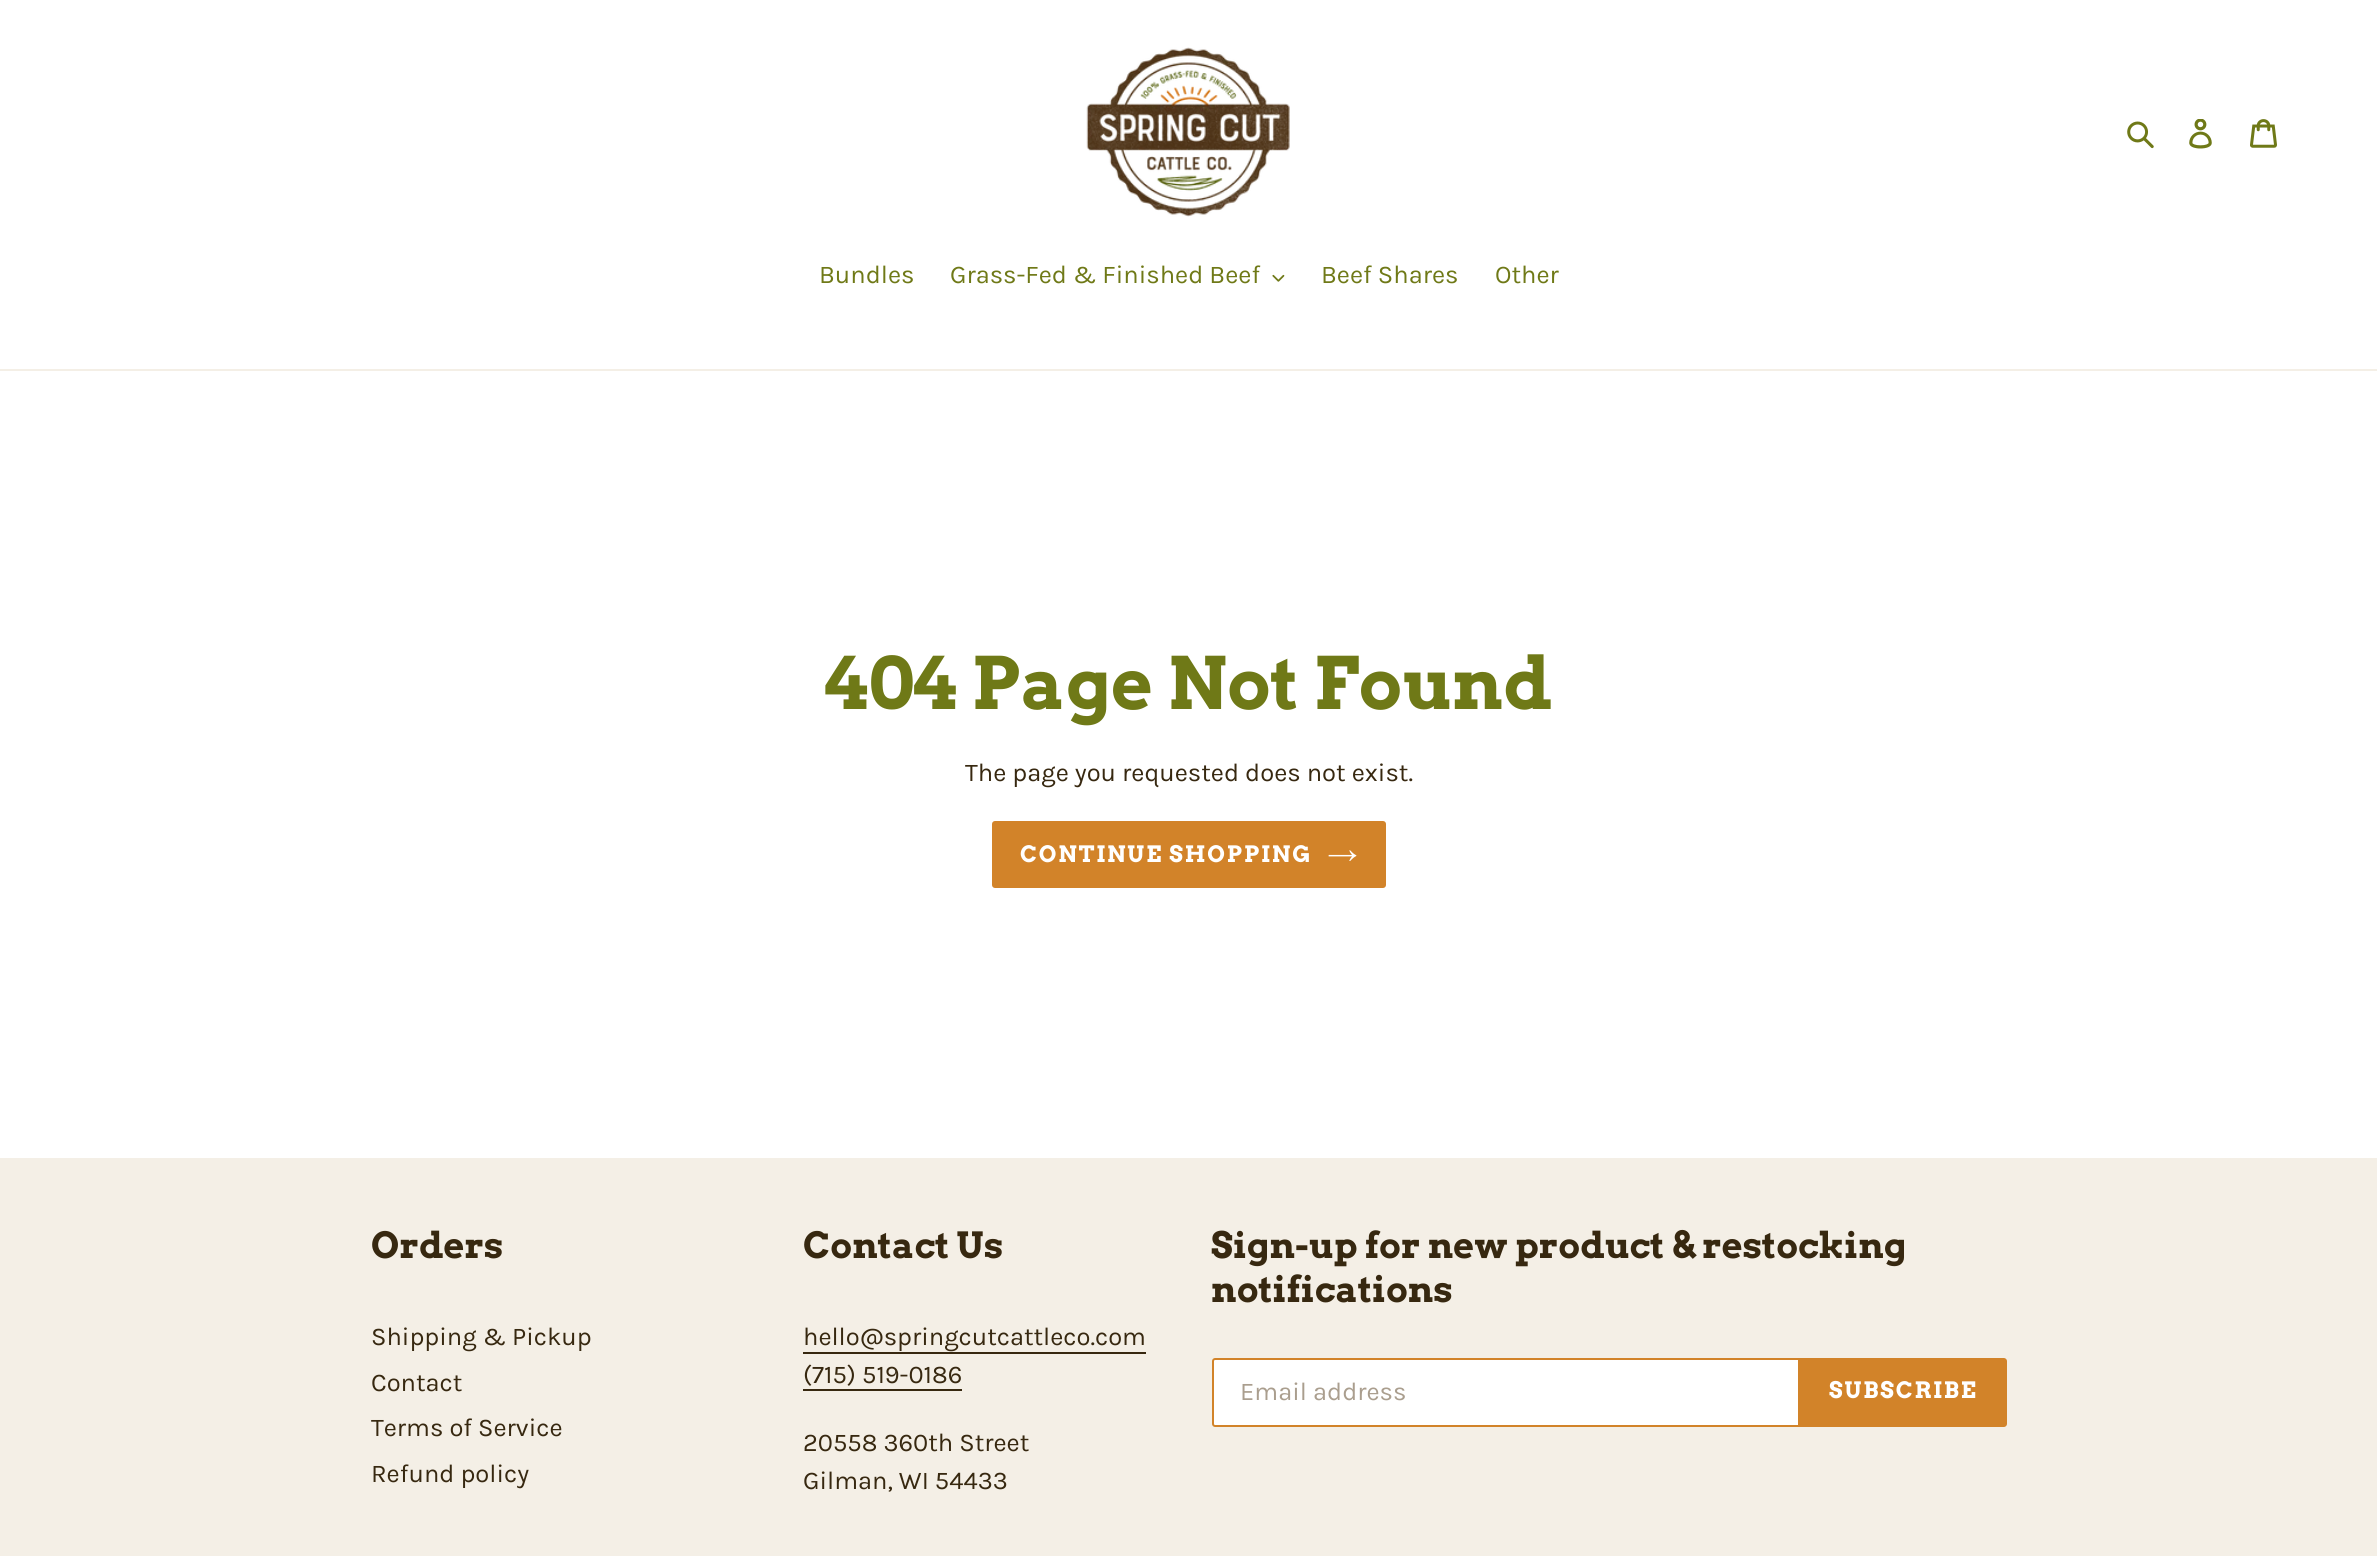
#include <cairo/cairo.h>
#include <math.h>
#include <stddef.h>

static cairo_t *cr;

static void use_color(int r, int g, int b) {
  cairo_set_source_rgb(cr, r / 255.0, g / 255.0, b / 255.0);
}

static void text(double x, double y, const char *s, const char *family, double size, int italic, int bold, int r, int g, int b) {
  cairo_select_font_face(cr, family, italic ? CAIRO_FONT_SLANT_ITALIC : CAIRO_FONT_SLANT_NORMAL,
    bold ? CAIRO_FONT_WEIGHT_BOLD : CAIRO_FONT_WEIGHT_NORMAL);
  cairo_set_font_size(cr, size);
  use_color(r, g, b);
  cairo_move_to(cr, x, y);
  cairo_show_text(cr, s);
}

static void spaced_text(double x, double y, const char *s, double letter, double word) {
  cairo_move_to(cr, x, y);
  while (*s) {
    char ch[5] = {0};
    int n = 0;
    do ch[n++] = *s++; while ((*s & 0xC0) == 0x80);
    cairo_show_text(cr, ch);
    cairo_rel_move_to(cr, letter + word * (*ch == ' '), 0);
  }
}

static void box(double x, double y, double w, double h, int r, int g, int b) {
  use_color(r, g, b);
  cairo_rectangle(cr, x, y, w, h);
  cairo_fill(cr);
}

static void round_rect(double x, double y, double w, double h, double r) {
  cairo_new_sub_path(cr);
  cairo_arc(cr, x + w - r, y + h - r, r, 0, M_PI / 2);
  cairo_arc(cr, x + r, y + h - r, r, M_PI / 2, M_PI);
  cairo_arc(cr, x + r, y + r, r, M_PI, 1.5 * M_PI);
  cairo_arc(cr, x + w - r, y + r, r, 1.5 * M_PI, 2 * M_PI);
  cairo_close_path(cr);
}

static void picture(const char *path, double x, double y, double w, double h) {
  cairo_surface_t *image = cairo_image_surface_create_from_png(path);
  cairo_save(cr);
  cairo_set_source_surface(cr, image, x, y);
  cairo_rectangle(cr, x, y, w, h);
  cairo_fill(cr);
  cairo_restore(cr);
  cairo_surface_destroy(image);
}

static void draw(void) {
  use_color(255, 255, 255);
  cairo_paint(cr);
  picture("img_01.png", 1086, 47, 204, 170);
  picture("img_02.png", 2127, 121, 27, 28);
  picture("img_03.png", 2189, 119, 23, 30);
  picture("img_04.png", 2250, 119, 27, 29);
  box(0, 369, 2377, 2, 244, 239, 230);
  picture("img_05.png", 1272, 274, 13, 8);
  use_color(210, 131, 41);
  round_rect(992, 821, 394, 67, 3);
  cairo_fill(cr);
  picture("img_06.png", 1328, 850, 29, 11);
  box(0, 1158, 2377, 398, 244, 239, 230);
  box(803, 1352, 343, 2, 55, 40, 16);
  box(803, 1389, 159, 2, 55, 40, 16);
  use_color(255, 255, 255);
  cairo_new_path(cr);
  cairo_move_to(cr, 1215, 1359);
  cairo_line_to(cr, 1799, 1359);
  cairo_line_to(cr, 1799, 1426);
  cairo_line_to(cr, 1215, 1426);
  cairo_curve_to(cr, 1214, 1426, 1213, 1425, 1213, 1424);
  cairo_line_to(cr, 1213, 1361);
  cairo_curve_to(cr, 1213, 1360, 1214, 1359, 1215, 1359);
  cairo_close_path(cr);
  cairo_fill_preserve(cr);
  use_color(210, 131, 41);
  cairo_stroke(cr);
  cairo_new_path(cr);
  cairo_move_to(cr, 1800, 1358);
  cairo_line_to(cr, 2004, 1358);
  cairo_curve_to(cr, 2005.5, 1358, 2007, 1359.5, 2007, 1361);
  cairo_line_to(cr, 2007, 1424);
  cairo_curve_to(cr, 2007, 1425.5, 2005.5, 1427, 2004, 1427);
  cairo_line_to(cr, 1800, 1427);
  cairo_close_path(cr);
  cairo_fill(cr);
  text(819, 283, "Bundles", "Karla", 25.5, 0, 0, 111, 121, 23);
  text(950, 283, "Grass-Fed & Finished Beef", "Karla", 25.5, 0, 0, 111, 121, 23);
  text(1321, 283, "Beef Shares", "Karla", 25.5, 0, 0, 111, 121, 23);
  text(1495, 283, "Other", "Karla", 25.5, 0, 0, 111, 121, 23);
  text(825, 709, "404 Page Not Found", "Arvo", 72, 0, 1, 111, 121, 23);
  text(965, 781, "The page you requested does not exist.", "Karla", 25.5, 0, 0, 55, 40, 16);
  cairo_select_font_face(cr, "Arvo", CAIRO_FONT_SLANT_NORMAL, CAIRO_FONT_WEIGHT_BOLD);
  cairo_set_font_size(cr, 22.5);
  use_color(255, 255, 255);
  spaced_text(1020, 862, "CONTINUE SHOPPING", 1.75, 0);
  text(371, 1258, "Orders", "Arvo", 36, 0, 1, 55, 40, 16);
  text(371, 1345, "Shipping & Pickup", "Karla", 25.5, 0, 0, 55, 40, 16);
  text(371, 1391, "Contact", "Karla", 25.5, 0, 0, 55, 40, 16);
  text(371, 1436, "Terms of Service", "Karla", 25.5, 0, 0, 55, 40, 16);
  text(371, 1482, "Refund policy", "Karla", 25.5, 0, 0, 55, 40, 16);
  text(803, 1258, "Contact Us", "Arvo", 36, 0, 1, 55, 40, 16);
  text(803, 1345, "hello@springcutcattleco.com", "Karla", 25.5, 0, 0, 55, 40, 16);
  text(803, 1383, "(715) 519-0186", "Karla", 25.5, 0, 0, 55, 40, 16);
  text(803, 1451, "20558 360th Street", "Karla", 25.5, 0, 0, 55, 40, 16);
  text(803, 1489, "Gilman, WI 54433", "Karla", 25.5, 0, 0, 55, 40, 16);
  text(1211, 1258, "Sign-up for new product & restocking", "Arvo", 36, 0, 1, 55, 40, 16);
  text(1211, 1302, "notifications", "Arvo", 36, 0, 1, 55, 40, 16);
  text(1240, 1400, "Email address", "Karla", 25.5, 0, 0, 170, 158, 142);
  cairo_select_font_face(cr, "Arvo", CAIRO_FONT_SLANT_NORMAL, CAIRO_FONT_WEIGHT_BOLD);
  cairo_set_font_size(cr, 22.5);
  use_color(255, 255, 255);
  spaced_text(1829, 1398, "SUBSCRIBE", 1.75, 0);
}

int main(void) {
  cairo_surface_t *surface = cairo_image_surface_create(CAIRO_FORMAT_RGB24, 2377, 1556);
  cr = cairo_create(surface);
  cairo_font_options_t *options = cairo_font_options_create();
  cairo_font_options_set_hint_metrics(options, CAIRO_HINT_METRICS_OFF);
  cairo_font_options_set_hint_style(options, CAIRO_HINT_STYLE_NONE);
  cairo_set_font_options(cr, options);
  cairo_set_miter_limit(cr, 4);
  draw();
  cairo_surface_write_to_png(surface, "out.png");
  cairo_font_options_destroy(options);
  cairo_destroy(cr);
  cairo_surface_destroy(surface);
  return 0;
}
